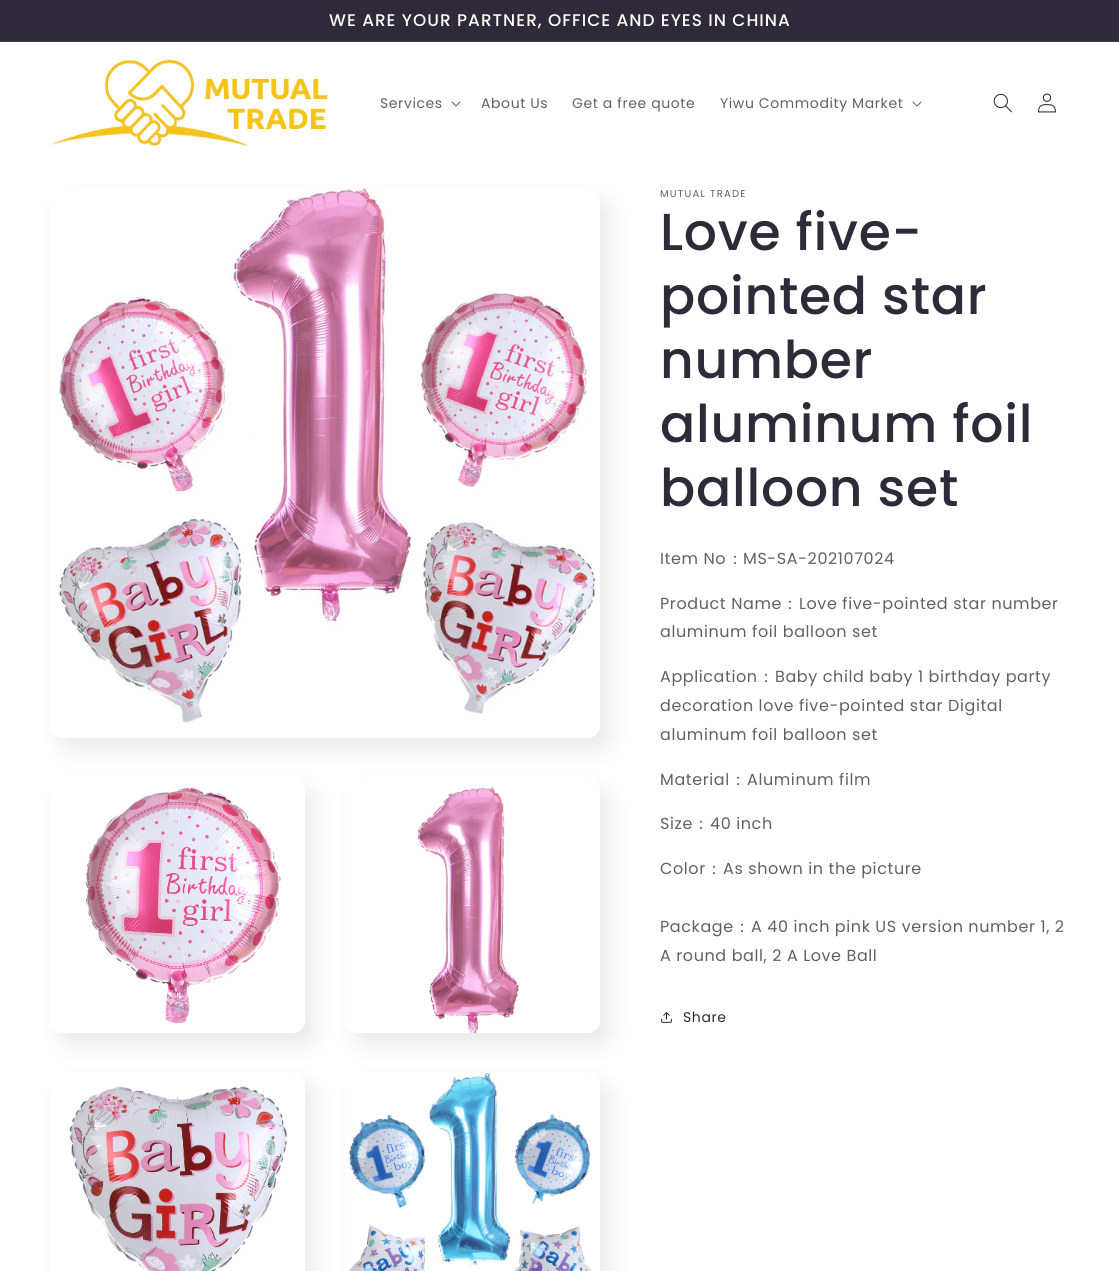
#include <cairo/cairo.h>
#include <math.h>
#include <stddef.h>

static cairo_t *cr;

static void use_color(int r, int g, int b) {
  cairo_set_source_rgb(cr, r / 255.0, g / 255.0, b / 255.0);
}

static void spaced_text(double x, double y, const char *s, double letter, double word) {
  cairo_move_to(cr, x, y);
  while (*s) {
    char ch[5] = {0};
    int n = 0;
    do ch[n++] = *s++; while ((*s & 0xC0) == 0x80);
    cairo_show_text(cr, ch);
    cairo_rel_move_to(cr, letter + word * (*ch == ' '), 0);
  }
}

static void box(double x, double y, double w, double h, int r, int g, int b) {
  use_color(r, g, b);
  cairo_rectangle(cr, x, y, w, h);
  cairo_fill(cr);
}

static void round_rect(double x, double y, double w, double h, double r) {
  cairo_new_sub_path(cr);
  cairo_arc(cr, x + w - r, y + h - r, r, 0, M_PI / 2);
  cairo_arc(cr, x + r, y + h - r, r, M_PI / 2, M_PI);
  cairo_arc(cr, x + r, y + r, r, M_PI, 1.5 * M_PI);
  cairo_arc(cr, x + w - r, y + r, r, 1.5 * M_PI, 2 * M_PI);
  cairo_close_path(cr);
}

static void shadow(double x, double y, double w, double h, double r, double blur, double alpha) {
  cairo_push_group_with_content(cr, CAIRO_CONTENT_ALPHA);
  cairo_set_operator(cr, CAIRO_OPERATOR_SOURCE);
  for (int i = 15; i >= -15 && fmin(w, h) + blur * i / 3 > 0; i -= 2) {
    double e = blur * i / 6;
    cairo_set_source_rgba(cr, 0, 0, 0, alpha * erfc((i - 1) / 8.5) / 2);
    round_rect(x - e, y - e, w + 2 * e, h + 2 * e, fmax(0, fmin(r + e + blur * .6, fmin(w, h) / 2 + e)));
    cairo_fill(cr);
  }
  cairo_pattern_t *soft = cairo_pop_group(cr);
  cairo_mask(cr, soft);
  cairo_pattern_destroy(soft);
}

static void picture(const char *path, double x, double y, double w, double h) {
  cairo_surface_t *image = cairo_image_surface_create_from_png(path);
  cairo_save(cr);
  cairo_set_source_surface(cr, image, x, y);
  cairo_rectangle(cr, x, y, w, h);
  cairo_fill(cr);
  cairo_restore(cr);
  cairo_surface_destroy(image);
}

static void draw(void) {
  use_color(255, 255, 255);
  cairo_paint(cr);
  box(0, 0, 1119, 41, 46, 42, 57);
  box(0, 41, 1119, 1, 63, 59, 72);
  picture("img_01.png", 50, 59, 278, 88);
  picture("img_02.png", 451, 101, 10, 6);
  picture("img_02.png", 912, 101, 10, 6);
  picture("img_03.png", 993, 93, 19, 20);
  picture("img_04.png", 1038, 93, 18, 20);
  use_color(46, 42, 57);
  shadow(60, 200, 550, 550, 12, 10, 0.1);
  use_color(255, 255, 255);
  round_rect(50, 188, 550, 550, 12);
  cairo_fill(cr);
  picture("img_05.png", 59, 188, 537, 537);
  use_color(46, 42, 57);
  shadow(60, 790, 255, 255, 12, 10, 0.1);
  use_color(255, 255, 255);
  round_rect(50, 778, 255, 255, 12);
  cairo_fill(cr);
  picture("img_06.png", 85, 787, 196, 237);
  use_color(46, 42, 57);
  shadow(355, 790, 255, 255, 12, 10, 0.1);
  use_color(255, 255, 255);
  round_rect(345, 778, 255, 255, 12);
  cairo_fill(cr);
  picture("img_07.png", 417, 786, 102, 247);
  use_color(46, 42, 57);
  shadow(60, 1085, 255, 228, 12, 10, 0.1);
  use_color(255, 255, 255);
  cairo_new_path(cr);
  cairo_move_to(cr, 62, 1073);
  cairo_line_to(cr, 293, 1073);
  cairo_curve_to(cr, 299.5, 1073, 305, 1078.5, 305, 1085);
  cairo_line_to(cr, 305, 1271);
  cairo_line_to(cr, 50, 1271);
  cairo_line_to(cr, 50, 1085);
  cairo_curve_to(cr, 50, 1078.5, 55.5, 1073, 62, 1073);
  cairo_close_path(cr);
  cairo_fill(cr);
  picture("img_08.png", 69, 1086, 219, 185);
  use_color(46, 42, 57);
  shadow(355, 1085, 255, 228, 12, 10, 0.1);
  use_color(255, 255, 255);
  cairo_new_path(cr);
  cairo_move_to(cr, 357, 1073);
  cairo_line_to(cr, 588, 1073);
  cairo_curve_to(cr, 594.5, 1073, 600, 1078.5, 600, 1085);
  cairo_line_to(cr, 600, 1271);
  cairo_line_to(cr, 345, 1271);
  cairo_line_to(cr, 345, 1085);
  cairo_curve_to(cr, 345, 1078.5, 350.5, 1073, 357, 1073);
  cairo_close_path(cr);
  cairo_fill(cr);
  picture("img_09.png", 348, 1073, 244, 198);
  picture("img_10.png", 661, 1012, 11, 11);
  cairo_select_font_face(cr, "Poppins Medium", CAIRO_FONT_SLANT_NORMAL, CAIRO_FONT_WEIGHT_NORMAL);
  cairo_set_font_size(cr, 16.9);
  use_color(253, 251, 247);
  spaced_text(329, 26, "WE ARE YOUR PARTNER, OFFICE AND EYES IN CHINA", 1, 0);
  cairo_select_font_face(cr, "Poppins", CAIRO_FONT_SLANT_NORMAL, CAIRO_FONT_WEIGHT_NORMAL);
  cairo_set_font_size(cr, 14);
  use_color(98, 95, 107);
  spaced_text(380, 108, "Services", 0.6, 0);
  spaced_text(481, 108, "About Us", 0.6, 0);
  spaced_text(572, 108, "Get a free quote", 0.6, 0);
  spaced_text(720, 108, "Yiwu Commodity Market", 0.6, 0);
  cairo_set_font_size(cr, 10);
  spaced_text(660, 197, "MUTUAL TRADE", 1.25, 0);
  cairo_select_font_face(cr, "Poppins Medium", CAIRO_FONT_SLANT_NORMAL, CAIRO_FONT_WEIGHT_NORMAL);
  cairo_set_font_size(cr, 52);
  use_color(46, 42, 57);
  spaced_text(660, 250, "Love five-", 0.75, 0);
  spaced_text(660, 314, "pointed star", 0.75, 0);
  spaced_text(660, 378, "number", 0.75, 0);
  spaced_text(660, 442, "aluminum foil", 0.75, 0);
  spaced_text(660, 506, "balloon set", 0.75, 0);
  cairo_select_font_face(cr, "Poppins", CAIRO_FONT_SLANT_NORMAL, CAIRO_FONT_WEIGHT_NORMAL);
  cairo_set_font_size(cr, 16);
  use_color(98, 95, 107);
  spaced_text(660, 564, "Item No", 0.6, 0);
  cairo_select_font_face(cr, "WenQuanYi Zen Hei Medium", CAIRO_FONT_SLANT_NORMAL, CAIRO_FONT_WEIGHT_NORMAL);
  spaced_text(727, 564, "：", 0.6, 0);
  cairo_select_font_face(cr, "Poppins", CAIRO_FONT_SLANT_NORMAL, CAIRO_FONT_WEIGHT_NORMAL);
  spaced_text(743, 564, "MS-SA-202107024", 0.6, 0);
  spaced_text(660, 609, "Product Name", 0.6, 0);
  cairo_select_font_face(cr, "WenQuanYi Zen Hei Medium", CAIRO_FONT_SLANT_NORMAL, CAIRO_FONT_WEIGHT_NORMAL);
  spaced_text(782, 609, "：", 0.6, 0);
  cairo_select_font_face(cr, "Poppins", CAIRO_FONT_SLANT_NORMAL, CAIRO_FONT_WEIGHT_NORMAL);
  spaced_text(799, 609, "Love five-pointed star number", 0.6, 0);
  spaced_text(660, 637, "aluminum foil balloon set", 0.6, 0);
  spaced_text(660, 682, "Application", 0.6, 0);
  cairo_select_font_face(cr, "WenQuanYi Zen Hei Medium", CAIRO_FONT_SLANT_NORMAL, CAIRO_FONT_WEIGHT_NORMAL);
  spaced_text(758, 682, "：", 0.6, 0);
  cairo_select_font_face(cr, "Poppins", CAIRO_FONT_SLANT_NORMAL, CAIRO_FONT_WEIGHT_NORMAL);
  spaced_text(775, 682, "Baby child baby 1 birthday party", 0.6, 0);
  spaced_text(660, 711, "decoration love five-pointed star Digital", 0.6, 0);
  spaced_text(660, 740, "aluminum foil balloon set", 0.6, 0);
  spaced_text(660, 785, "Material", 0.6, 0);
  cairo_select_font_face(cr, "WenQuanYi Zen Hei Medium", CAIRO_FONT_SLANT_NORMAL, CAIRO_FONT_WEIGHT_NORMAL);
  spaced_text(730, 785, "：", 0.6, 0);
  cairo_select_font_face(cr, "Poppins", CAIRO_FONT_SLANT_NORMAL, CAIRO_FONT_WEIGHT_NORMAL);
  spaced_text(747, 785, "Aluminum film", 0.6, 0);
  spaced_text(660, 829, "Size", 0.6, 0);
  cairo_select_font_face(cr, "WenQuanYi Zen Hei Medium", CAIRO_FONT_SLANT_NORMAL, CAIRO_FONT_WEIGHT_NORMAL);
  spaced_text(693, 829, "：", 0.6, 0);
  cairo_select_font_face(cr, "Poppins", CAIRO_FONT_SLANT_NORMAL, CAIRO_FONT_WEIGHT_NORMAL);
  spaced_text(710, 829, "40 inch", 0.6, 0);
  spaced_text(660, 874, "Color", 0.6, 0);
  cairo_select_font_face(cr, "WenQuanYi Zen Hei Medium", CAIRO_FONT_SLANT_NORMAL, CAIRO_FONT_WEIGHT_NORMAL);
  spaced_text(706, 874, "：", 0.6, 0);
  cairo_select_font_face(cr, "Poppins", CAIRO_FONT_SLANT_NORMAL, CAIRO_FONT_WEIGHT_NORMAL);
  spaced_text(723, 874, "As shown in the picture", 0.6, 0);
  spaced_text(660, 932, "Package", 0.6, 0);
  cairo_select_font_face(cr, "WenQuanYi Zen Hei Medium", CAIRO_FONT_SLANT_NORMAL, CAIRO_FONT_WEIGHT_NORMAL);
  spaced_text(734, 932, "：", 0.6, 0);
  cairo_select_font_face(cr, "Poppins", CAIRO_FONT_SLANT_NORMAL, CAIRO_FONT_WEIGHT_NORMAL);
  spaced_text(751, 932, "A 40 inch pink US version number 1, 2", 0.6, 0);
  spaced_text(660, 961, "A round ball, 2 A Love Ball", 0.6, 0);
  cairo_set_font_size(cr, 14);
  use_color(46, 42, 57);
  spaced_text(683, 1022, "Share", 0.6, 0);
}

int main(void) {
  cairo_surface_t *surface = cairo_image_surface_create(CAIRO_FORMAT_RGB24, 1119, 1271);
  cr = cairo_create(surface);
  cairo_font_options_t *options = cairo_font_options_create();
  cairo_font_options_set_hint_metrics(options, CAIRO_HINT_METRICS_OFF);
  cairo_font_options_set_hint_style(options, CAIRO_HINT_STYLE_NONE);
  cairo_set_font_options(cr, options);
  cairo_set_miter_limit(cr, 4);
  draw();
  cairo_surface_write_to_png(surface, "out.png");
  cairo_font_options_destroy(options);
  cairo_destroy(cr);
  cairo_surface_destroy(surface);
  return 0;
}
